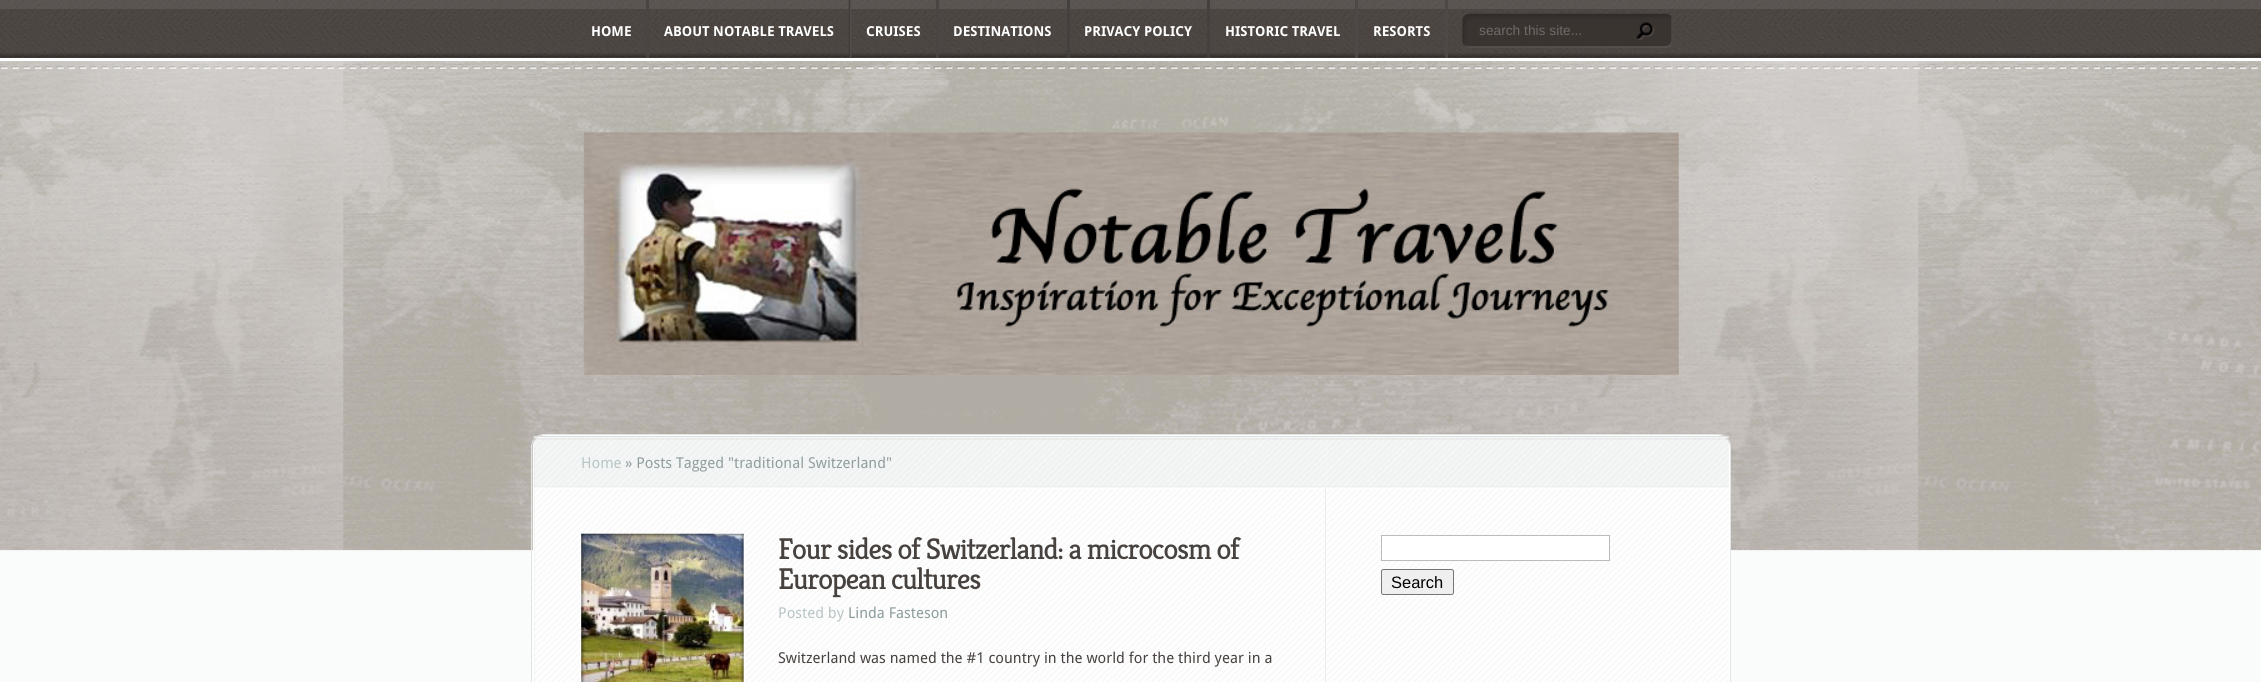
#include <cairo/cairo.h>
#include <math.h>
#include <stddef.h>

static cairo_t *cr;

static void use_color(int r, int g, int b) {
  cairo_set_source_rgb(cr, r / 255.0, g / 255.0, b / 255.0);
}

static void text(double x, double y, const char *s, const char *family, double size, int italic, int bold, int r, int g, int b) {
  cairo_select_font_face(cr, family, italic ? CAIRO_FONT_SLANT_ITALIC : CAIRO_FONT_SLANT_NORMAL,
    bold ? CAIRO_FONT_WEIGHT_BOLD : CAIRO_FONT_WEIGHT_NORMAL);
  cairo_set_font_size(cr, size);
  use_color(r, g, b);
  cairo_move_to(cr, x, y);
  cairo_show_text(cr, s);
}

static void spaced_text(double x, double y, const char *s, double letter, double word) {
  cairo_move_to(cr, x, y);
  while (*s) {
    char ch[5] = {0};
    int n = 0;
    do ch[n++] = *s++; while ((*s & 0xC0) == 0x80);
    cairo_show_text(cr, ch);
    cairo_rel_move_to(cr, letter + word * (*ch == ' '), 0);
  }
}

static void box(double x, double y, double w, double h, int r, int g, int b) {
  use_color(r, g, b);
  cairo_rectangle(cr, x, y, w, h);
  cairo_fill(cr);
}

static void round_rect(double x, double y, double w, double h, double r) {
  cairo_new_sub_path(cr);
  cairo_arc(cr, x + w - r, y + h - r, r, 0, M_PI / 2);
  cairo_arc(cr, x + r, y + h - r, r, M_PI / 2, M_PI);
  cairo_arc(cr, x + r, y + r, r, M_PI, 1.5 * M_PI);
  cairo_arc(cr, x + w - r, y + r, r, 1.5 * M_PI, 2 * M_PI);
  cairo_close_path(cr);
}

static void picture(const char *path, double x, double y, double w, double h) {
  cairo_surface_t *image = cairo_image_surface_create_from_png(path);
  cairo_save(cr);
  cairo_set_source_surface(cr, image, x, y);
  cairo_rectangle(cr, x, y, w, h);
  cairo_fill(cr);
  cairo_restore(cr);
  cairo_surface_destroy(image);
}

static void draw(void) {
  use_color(255, 255, 255);
  cairo_paint(cr);
  picture("img_01.png", 0, 0, 2261, 58);
  cairo_set_source_rgba(cr, 1, 1, 1, 0.08);
  cairo_rectangle(cr, 0, 0, 2261, 9);
  cairo_fill(cr);
  picture("img_05.png", 0, 53, 2261, 5);
  box(646, 0, 3, 58, 74, 69, 66);
  picture("img_02.png", 848, 0, 4, 58);
  box(936, 0, 3, 58, 74, 69, 66);
  box(1067, 0, 3, 58, 68, 64, 61);
  box(1207, 0, 3, 58, 68, 64, 61);
  box(1355, 0, 3, 58, 78, 73, 70);
  box(1445, 0, 3, 58, 78, 73, 70);
  picture("img_03.png", 1462, 13, 211, 35);
  picture("img_04.png", 1636, 22, 18, 18);
  box(0, 549, 2261, 133, 250, 252, 252);
  picture("img_06.png", 0, 61, 2261, 490);
  picture("img_07.png", 0, 66, 2258, 3);
  picture("img_08.png", 583, 132, 1096, 243);
  round_rect(531.5, 434.5, 1199, 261, 12.5);
  use_color(226, 229, 229);
  cairo_set_line_width(cr, 1);
  cairo_stroke(cr);
  picture("img_09.png", 532, 435, 1198, 247);
  round_rect(533.5, 435.5, 1196, 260, 12.5);
  use_color(255, 255, 255);
  cairo_stroke(cr);
  picture("img_10.png", 534, 445, 1, 237);
  cairo_set_source_rgba(cr, 0, 0, 0, 0.03);
  cairo_rectangle(cr, 539, 438, 1184, 1);
  cairo_fill(cr);
  picture("img_12.png", 533, 436, 793, 53);
  picture("img_16.png", 1326, 437, 403, 52);
  picture("img_11.png", 534, 439, 1194, 1);
  box(534, 436, 1195, 1, 222, 224, 224);
  picture("img_13.png", 1325, 488, 1, 194);
  picture("img_14.png", 581, 533, 163, 149);
  picture("img_15.png", 581, 533, 164, 149);
  use_color(255, 255, 255);
  cairo_rectangle(cr, 1381.5, 535.5, 228, 25);
  cairo_fill_preserve(cr);
  use_color(187, 187, 187);
  cairo_stroke(cr);
  use_color(239, 239, 239);
  round_rect(1381.5, 569.5, 72, 25, 2);
  cairo_fill_preserve(cr);
  use_color(118, 118, 118);
  cairo_stroke(cr);
  text(591, 36, "HOME", "Droid Sans", 13.75, 0, 1, 255, 255, 255);
  text(664, 36, "ABOUT NOTABLE TRAVELS", "Droid Sans", 13.75, 0, 1, 255, 255, 255);
  text(866, 36, "CRUISES", "Droid Sans", 13.75, 0, 1, 255, 255, 255);
  text(953, 36, "DESTINATIONS", "Droid Sans", 13.75, 0, 1, 255, 255, 255);
  text(1084, 36, "PRIVACY POLICY", "Droid Sans", 13.75, 0, 1, 255, 255, 255);
  text(1225, 36, "HISTORIC TRAVEL", "Droid Sans", 13.75, 0, 1, 255, 255, 255);
  text(1373, 36, "RESORTS", "Droid Sans", 13.75, 0, 1, 255, 255, 255);
  text(1479, 35, "search this site...", "Liberation Sans", 13.75, 0, 0, 111, 105, 103);
  text(581, 468, "Home", "Droid Sans", 15, 0, 0, 185, 197, 197);
  text(625, 468, "» Posts Tagged \"traditional Switzerland\"", "Droid Sans", 15, 0, 0, 146, 158, 158);
  cairo_select_font_face(cr, "Kreon", CAIRO_FONT_SLANT_NORMAL, CAIRO_FONT_WEIGHT_NORMAL);
  cairo_set_font_size(cr, 30);
  use_color(72, 66, 63);
  spaced_text(778, 559, "Four sides of Switzerland: a microcosm of", -1.25, 0);
  spaced_text(778, 589, "European cultures", -1.25, 0);
  text(778, 618, "Posted by", "Droid Sans", 15, 0, 0, 185, 197, 197);
  text(848, 618, "Linda Fasteson", "Droid Sans", 15, 0, 0, 140, 156, 156);
  text(778, 663, "Switzerland was named the #1 country in the world for the third year in a", "Droid Sans", 15, 0, 0, 72, 66, 63);
  text(1391, 588, "Search", "Liberation Sans", 16.5, 0, 0, 0, 0, 0);
}

int main(void) {
  cairo_surface_t *surface = cairo_image_surface_create(CAIRO_FORMAT_RGB24, 2261, 682);
  cr = cairo_create(surface);
  cairo_font_options_t *options = cairo_font_options_create();
  cairo_font_options_set_hint_metrics(options, CAIRO_HINT_METRICS_OFF);
  cairo_font_options_set_hint_style(options, CAIRO_HINT_STYLE_NONE);
  cairo_set_font_options(cr, options);
  cairo_set_miter_limit(cr, 4);
  draw();
  cairo_surface_write_to_png(surface, "out.png");
  cairo_font_options_destroy(options);
  cairo_destroy(cr);
  cairo_surface_destroy(surface);
  return 0;
}
